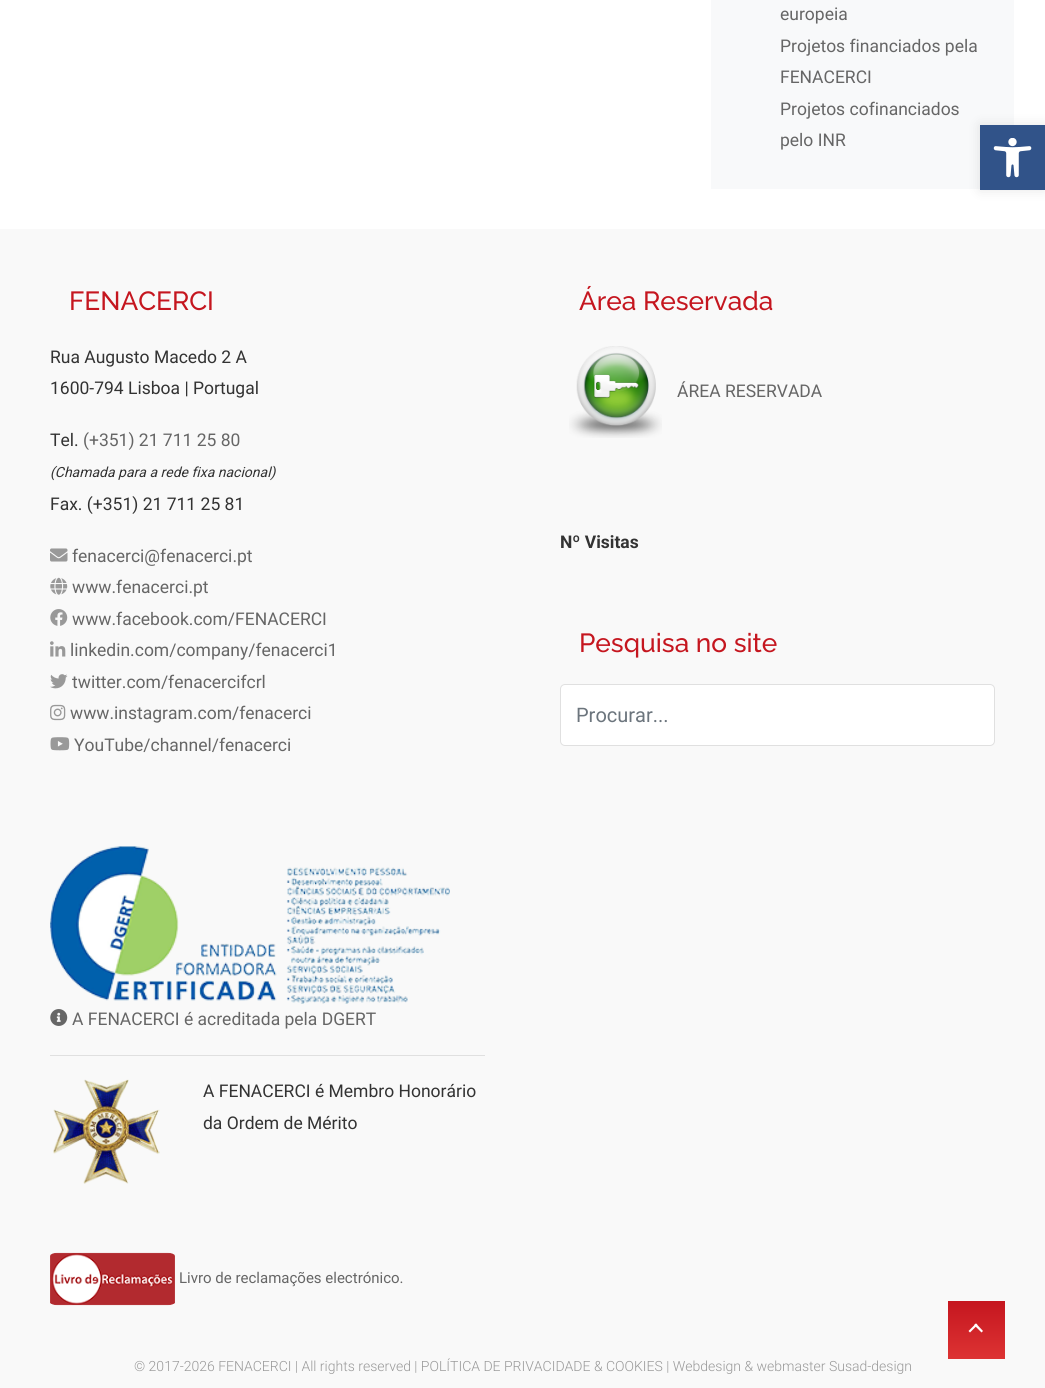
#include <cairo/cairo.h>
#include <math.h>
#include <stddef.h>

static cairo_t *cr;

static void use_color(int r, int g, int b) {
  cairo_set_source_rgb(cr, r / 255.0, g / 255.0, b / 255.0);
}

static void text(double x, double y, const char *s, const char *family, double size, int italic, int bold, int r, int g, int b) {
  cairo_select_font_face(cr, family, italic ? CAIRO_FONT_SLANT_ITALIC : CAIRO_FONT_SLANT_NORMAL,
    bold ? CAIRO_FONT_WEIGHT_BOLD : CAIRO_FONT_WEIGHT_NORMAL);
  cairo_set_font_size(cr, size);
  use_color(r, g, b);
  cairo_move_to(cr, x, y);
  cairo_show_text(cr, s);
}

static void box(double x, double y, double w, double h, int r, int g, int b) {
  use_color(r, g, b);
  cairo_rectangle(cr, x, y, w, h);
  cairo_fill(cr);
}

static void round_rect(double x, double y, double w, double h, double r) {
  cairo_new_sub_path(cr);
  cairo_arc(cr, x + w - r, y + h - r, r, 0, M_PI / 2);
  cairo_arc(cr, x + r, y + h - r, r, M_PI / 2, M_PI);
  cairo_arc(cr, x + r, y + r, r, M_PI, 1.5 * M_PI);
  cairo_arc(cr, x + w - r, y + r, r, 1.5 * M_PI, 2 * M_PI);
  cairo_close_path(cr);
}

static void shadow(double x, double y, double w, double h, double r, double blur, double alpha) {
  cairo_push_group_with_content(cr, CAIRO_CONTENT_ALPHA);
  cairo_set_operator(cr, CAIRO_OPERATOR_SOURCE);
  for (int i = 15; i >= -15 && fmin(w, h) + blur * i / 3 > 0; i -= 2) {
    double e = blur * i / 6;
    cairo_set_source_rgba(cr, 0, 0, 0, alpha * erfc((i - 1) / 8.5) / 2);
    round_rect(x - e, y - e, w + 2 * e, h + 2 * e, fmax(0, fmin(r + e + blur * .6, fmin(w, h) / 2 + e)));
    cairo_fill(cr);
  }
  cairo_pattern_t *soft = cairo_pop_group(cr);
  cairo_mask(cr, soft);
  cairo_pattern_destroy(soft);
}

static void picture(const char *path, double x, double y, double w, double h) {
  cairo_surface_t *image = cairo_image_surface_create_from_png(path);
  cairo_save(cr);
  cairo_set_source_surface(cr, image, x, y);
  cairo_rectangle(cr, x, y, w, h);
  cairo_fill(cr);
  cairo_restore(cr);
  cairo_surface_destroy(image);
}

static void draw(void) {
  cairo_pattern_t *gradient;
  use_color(249, 249, 249);
  cairo_paint(cr);
  box(0, 0, 1045, 229, 255, 255, 255);
  box(711, 0, 303, 189, 248, 249, 250);
  picture("img_01.png", 50, 548, 18, 14);
  picture("img_02.png", 50, 577, 18, 18);
  picture("img_03.png", 50, 609, 18, 17);
  picture("img_04.png", 50, 641, 16, 16);
  picture("img_05.png", 50, 674, 18, 15);
  picture("img_06.png", 50, 704, 16, 17);
  picture("img_07.png", 50, 737, 20, 14);
  picture("img_08.png", 569, 346, 93, 92);
  use_color(255, 255, 255);
  round_rect(560.5, 684.5, 434, 61, 4.5);
  cairo_fill_preserve(cr);
  use_color(224, 224, 224);
  cairo_set_line_width(cr, 1);
  cairo_stroke(cr);
  picture("img_09.png", 50, 846, 400, 158);
  picture("img_10.png", 50, 1009, 18, 17);
  box(50, 1055, 435, 1, 224, 224, 224);
  picture("img_11.png", 53, 1079, 107, 105);
  picture("img_12.png", 50, 1252, 125, 54);
  gradient = cairo_pattern_create_linear(976, 1359, 976, 1301);
  cairo_pattern_add_color_stop_rgba(gradient, 0, 0.867, 0.2, 0.2, 1);
  cairo_pattern_add_color_stop_rgba(gradient, 1, 0.773, 0.086, 0.122, 1);
  cairo_set_source(cr, gradient);
  cairo_pattern_destroy(gradient);
  cairo_rectangle(cr, 948, 1301, 57, 58);
  cairo_fill(cr);
  use_color(255, 255, 255);
  cairo_new_path(cr);
  cairo_move_to(cr, 968.5, 1331);
  cairo_line_to(cr, 976, 1323.5);
  cairo_line_to(cr, 977.5, 1325);
  cairo_line_to(cr, 970, 1332.5);
  cairo_close_path(cr);
  cairo_fill(cr);
  cairo_new_path(cr);
  cairo_move_to(cr, 974, 1325);
  cairo_line_to(cr, 976, 1323.5);
  cairo_line_to(cr, 983, 1331);
  cairo_line_to(cr, 981.5, 1332.5);
  cairo_close_path(cr);
  cairo_fill(cr);
  use_color(0, 0, 0);
  shadow(980, 125, 65, 65, 0, 6, 0.1);
  box(980, 125, 65, 65, 49, 83, 137);
  picture("img_13.png", 993, 138, 39, 40);
  text(780, 20, "europeia", "Roboto", 17.5, 0, 0, 102, 102, 102);
  text(780, 52, "Projetos financiados pela", "Roboto", 17.5, 0, 0, 102, 102, 102);
  text(780, 83, "FENACERCI", "Roboto", 17.5, 0, 0, 102, 102, 102);
  text(780, 115, "Projetos cofinanciados", "Roboto", 17.5, 0, 0, 102, 102, 102);
  text(780, 146, "pelo INR", "Roboto", 17.5, 0, 0, 102, 102, 102);
  text(69, 310, "FENACERCI", "Raleway Medium", 26.25, 0, 0, 197, 22, 31);
  text(50, 363, "Rua Augusto Macedo 2 A", "Roboto", 17.5, 0, 0, 51, 51, 51);
  text(50, 394, "1600-794 Lisboa | Portugal", "Roboto", 17.5, 0, 0, 51, 51, 51);
  text(50, 446, "Tel.", "Roboto", 17.5, 0, 0, 51, 51, 51);
  text(83, 446, "(+351) 21 711 25 80", "Roboto", 17.5, 0, 0, 102, 102, 102);
  text(50, 477, "(Chamada para a rede fixa nacional)", "Roboto", 14, 1, 0, 51, 51, 51);
  text(50, 510, "Fax. (+351) 21 711 25 81", "Roboto", 17.5, 0, 0, 51, 51, 51);
  text(72, 562, "fenacerci@fenacerci.pt", "Roboto", 17.5, 0, 0, 102, 102, 102);
  text(72, 593, "www.fenacerci.pt", "Roboto", 17.5, 0, 0, 102, 102, 102);
  text(72, 625, "www.facebook.com/FENACERCI", "Roboto", 17.5, 0, 0, 102, 102, 102);
  text(70, 656, "linkedin.com/company/fenacerci1", "Roboto", 17.5, 0, 0, 102, 102, 102);
  text(72, 688, "twitter.com/fenacercifcrl", "Roboto", 17.5, 0, 0, 102, 102, 102);
  text(70, 719, "www.instagram.com/fenacerci", "Roboto", 17.5, 0, 0, 102, 102, 102);
  text(74, 751, "YouTube/channel/fenacerci", "Roboto", 17.5, 0, 0, 102, 102, 102);
  text(579, 310, "Área Reservada", "Raleway Medium", 26.25, 0, 0, 197, 22, 31);
  text(677, 397, "ÁREA RESERVADA", "Roboto", 17.5, 0, 0, 102, 102, 102);
  text(560, 548, "Nº Visitas", "Roboto", 17.5, 0, 1, 51, 51, 51);
  text(579, 652, "Pesquisa no site", "Raleway Medium", 26.25, 0, 0, 197, 22, 31);
  text(576, 722, "Procurar...", "Roboto", 20, 0, 0, 108, 117, 125);
  text(72, 1025, "A FENACERCI é acreditada pela DGERT", "Roboto", 17.5, 0, 0, 102, 102, 102);
  text(203, 1097, "A FENACERCI é Membro Honorário", "Roboto", 17.5, 0, 0, 51, 51, 51);
  text(203, 1129, "da Ordem de Mérito", "Roboto", 17.5, 0, 0, 51, 51, 51);
  text(179, 1283, "Livro de reclamações electrónico.", "Roboto", 15, 0, 0, 102, 102, 102);
  text(134, 1371, "© 2017-2026 FENACERCI | All rights reserved | POLÍTICA DE PRIVACIDADE & COOKIES | Webdesign & webmaster Susad-design", "Roboto Light", 14, 0, 0, 153, 153, 153);
}

int main(void) {
  cairo_surface_t *surface = cairo_image_surface_create(CAIRO_FORMAT_RGB24, 1045, 1388);
  cr = cairo_create(surface);
  cairo_font_options_t *options = cairo_font_options_create();
  cairo_font_options_set_hint_metrics(options, CAIRO_HINT_METRICS_OFF);
  cairo_font_options_set_hint_style(options, CAIRO_HINT_STYLE_NONE);
  cairo_set_font_options(cr, options);
  cairo_set_miter_limit(cr, 4);
  draw();
  cairo_surface_write_to_png(surface, "out.png");
  cairo_font_options_destroy(options);
  cairo_destroy(cr);
  cairo_surface_destroy(surface);
  return 0;
}
